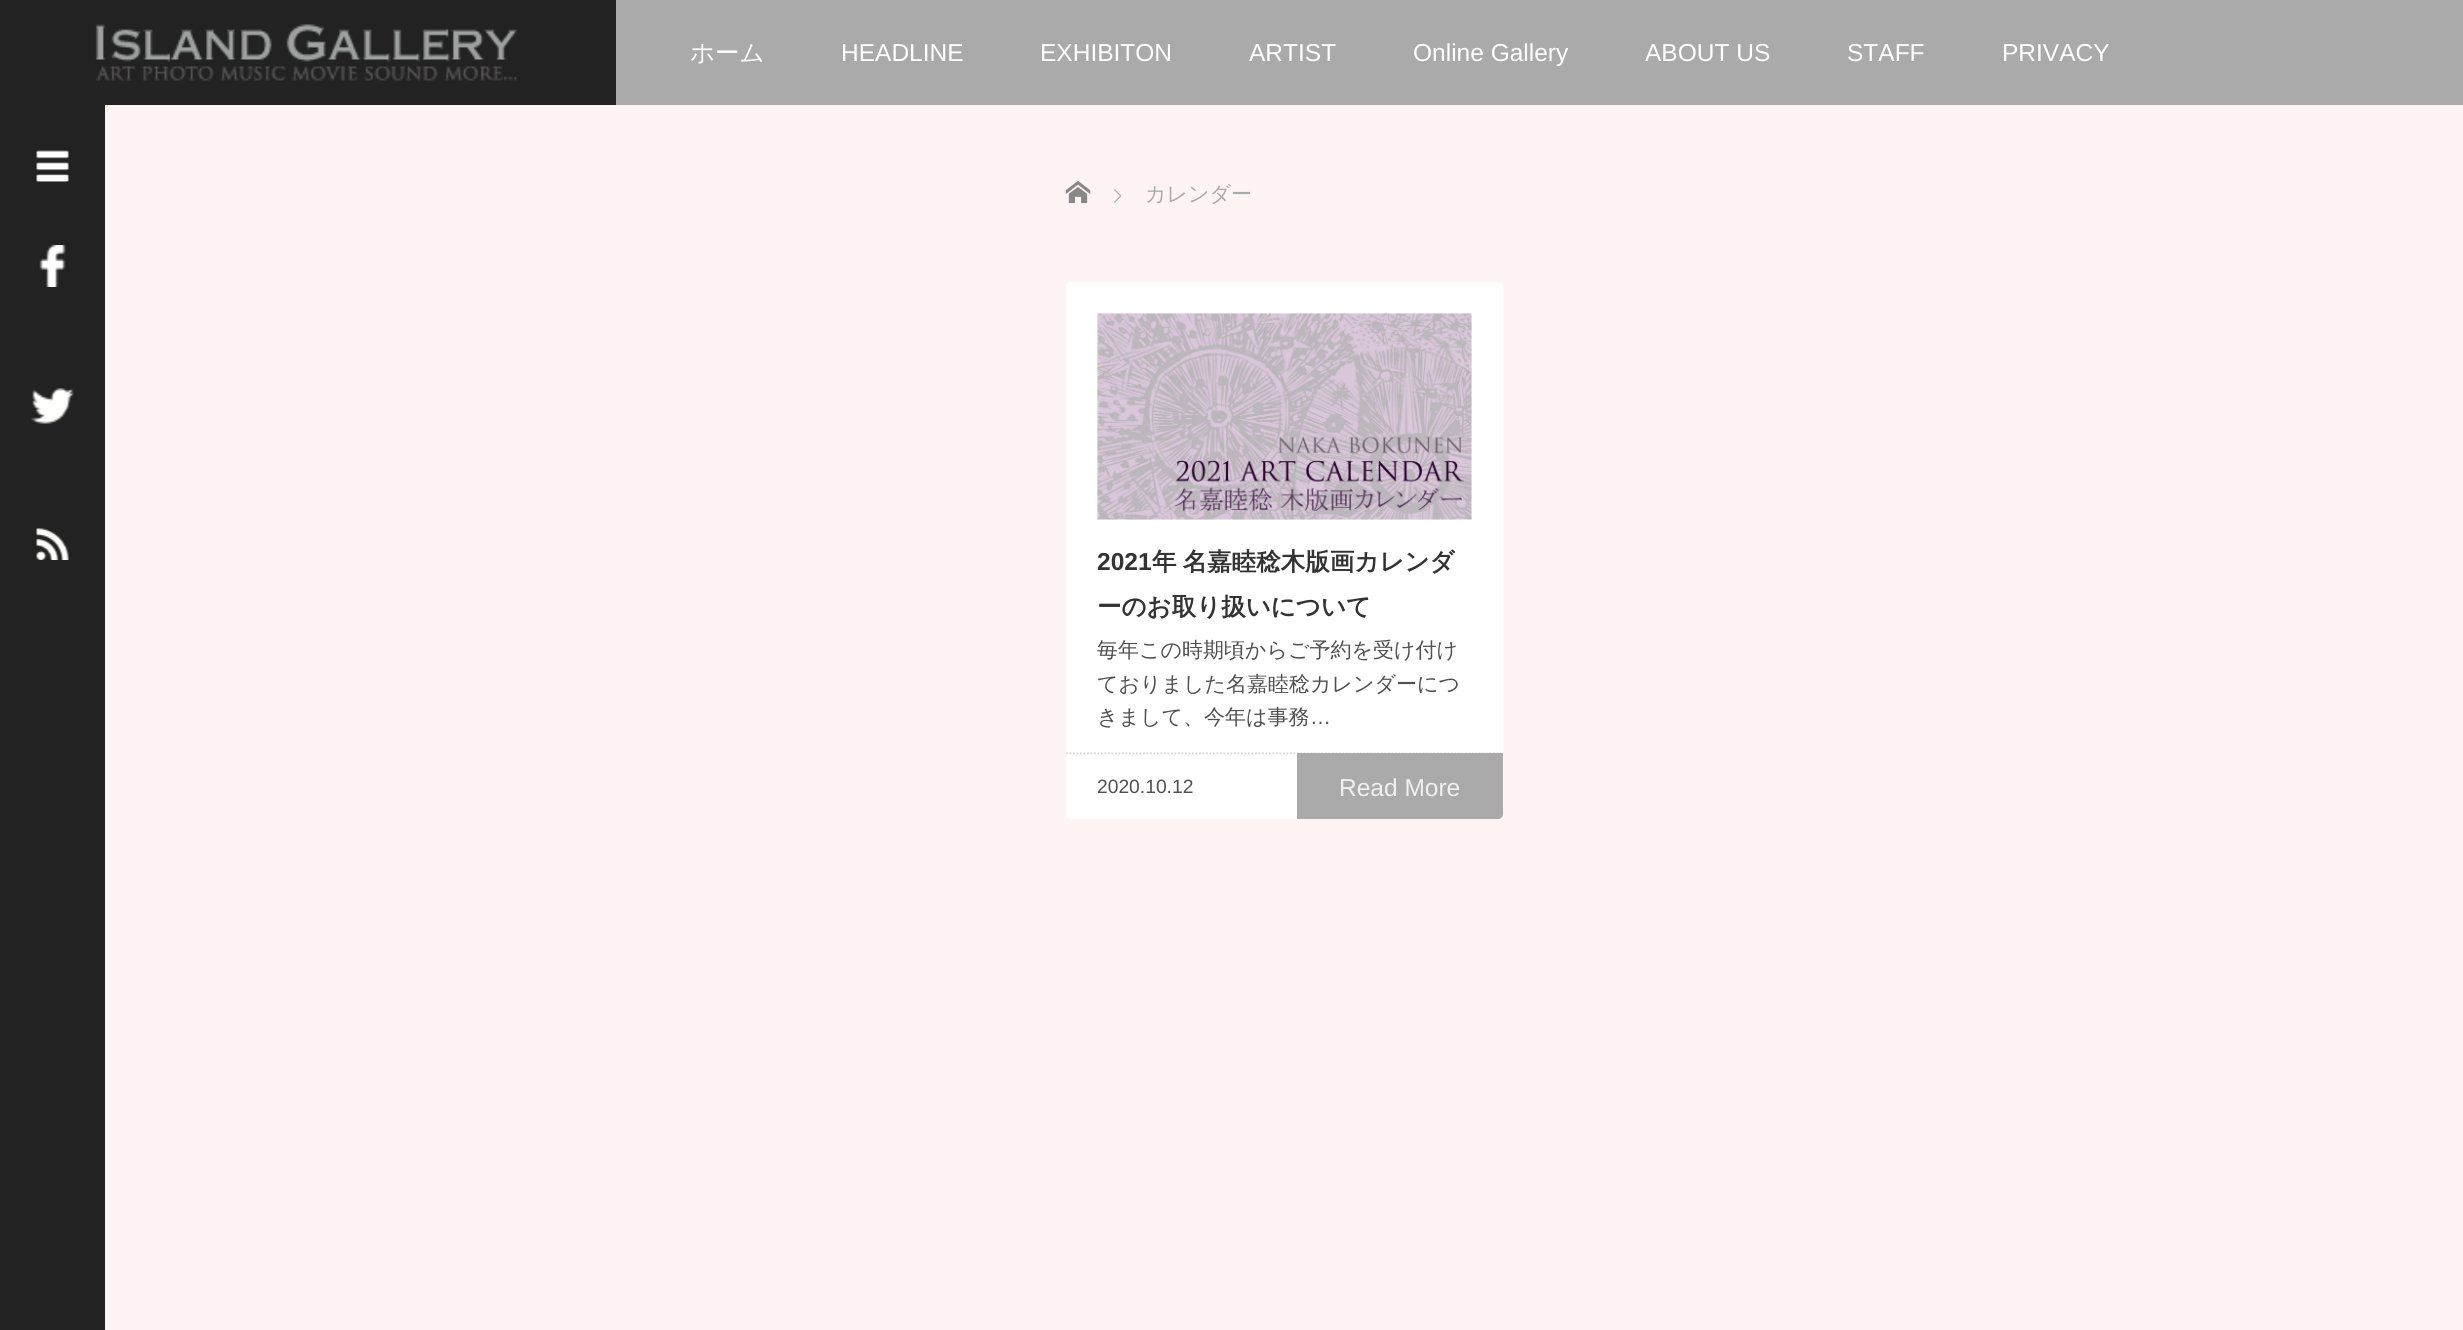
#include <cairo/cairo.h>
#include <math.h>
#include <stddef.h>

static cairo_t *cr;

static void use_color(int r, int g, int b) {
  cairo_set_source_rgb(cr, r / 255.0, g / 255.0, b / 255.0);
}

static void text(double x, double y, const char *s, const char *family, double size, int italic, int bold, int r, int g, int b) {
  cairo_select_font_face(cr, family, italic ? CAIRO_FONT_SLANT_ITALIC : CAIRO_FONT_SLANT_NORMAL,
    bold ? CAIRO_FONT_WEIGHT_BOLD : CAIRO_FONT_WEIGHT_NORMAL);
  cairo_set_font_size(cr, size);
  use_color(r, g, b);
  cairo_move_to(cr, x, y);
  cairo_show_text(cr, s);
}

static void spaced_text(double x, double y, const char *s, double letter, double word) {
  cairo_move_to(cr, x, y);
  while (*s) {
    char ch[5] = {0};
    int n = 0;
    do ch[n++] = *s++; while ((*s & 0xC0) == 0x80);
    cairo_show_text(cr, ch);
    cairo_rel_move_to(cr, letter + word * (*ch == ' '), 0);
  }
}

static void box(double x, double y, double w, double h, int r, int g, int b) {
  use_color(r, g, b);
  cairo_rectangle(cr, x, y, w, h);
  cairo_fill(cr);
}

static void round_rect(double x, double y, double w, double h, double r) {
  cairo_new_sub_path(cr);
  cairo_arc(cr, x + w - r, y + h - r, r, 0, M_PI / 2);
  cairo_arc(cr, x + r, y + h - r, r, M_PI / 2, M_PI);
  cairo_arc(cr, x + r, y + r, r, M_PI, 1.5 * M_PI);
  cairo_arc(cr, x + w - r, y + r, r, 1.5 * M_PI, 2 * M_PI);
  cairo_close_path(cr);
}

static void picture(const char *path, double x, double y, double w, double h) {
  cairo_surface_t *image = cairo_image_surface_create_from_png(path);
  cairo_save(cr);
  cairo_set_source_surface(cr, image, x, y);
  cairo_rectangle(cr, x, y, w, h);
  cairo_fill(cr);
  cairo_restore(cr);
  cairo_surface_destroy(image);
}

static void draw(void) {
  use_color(255, 244, 244);
  cairo_paint(cr);
  box(0, 0, 616, 105, 34, 34, 34);
  picture("img_01.png", 95, 24, 422, 57);
  box(616, 0, 1847, 105, 170, 170, 170);
  box(0, 105, 105, 1225, 34, 34, 34);
  picture("img_02.png", 36, 150, 33, 32);
  picture("img_03.png", 39, 245, 27, 42);
  picture("img_04.png", 31, 388, 43, 36);
  picture("img_05.png", 36, 528, 33, 32);
  picture("img_06.png", 1065, 181, 26, 22);
  picture("img_07.png", 1114, 189, 8, 14);
  use_color(255, 255, 255);
  round_rect(1066, 282, 437, 537, 5);
  cairo_fill(cr);
  picture("img_08.png", 1097, 313, 375, 207);
  cairo_new_path(cr);
  cairo_move_to(cr, 1066, 753.5);
  cairo_line_to(cr, 1503, 753.5);
  use_color(211, 211, 211);
  cairo_set_line_width(cr, 1.8);
  cairo_set_dash(cr, (double[]){1.75, 1.75}, 2, 0);
  cairo_stroke(cr);
  use_color(170, 170, 170);
  cairo_new_path(cr);
  cairo_move_to(cr, 1297, 753);
  cairo_line_to(cr, 1503, 753);
  cairo_line_to(cr, 1503, 814);
  cairo_curve_to(cr, 1503, 817, 1501, 819, 1498, 819);
  cairo_line_to(cr, 1297, 819);
  cairo_close_path(cr);
  cairo_fill(cr);
  text(690, 61, "ホーム", "WenQuanYi Zen Hei Medium", 24.5, 0, 0, 255, 255, 255);
  text(841, 61, "HEADLINE", "Liberation Sans", 24.5, 0, 0, 255, 255, 255);
  text(1040, 61, "EXHIBITON", "Liberation Sans", 24.5, 0, 0, 255, 255, 255);
  text(1249, 61, "ARTIST", "Liberation Sans", 24.5, 0, 0, 255, 255, 255);
  text(1413, 61, "Online Gallery", "Liberation Sans", 24.5, 0, 0, 255, 255, 255);
  text(1645, 61, "ABOUT US", "Liberation Sans", 24.5, 0, 0, 255, 255, 255);
  text(1847, 61, "STAFF", "Liberation Sans", 24.5, 0, 0, 255, 255, 255);
  text(2002, 61, "PRIVACY", "Liberation Sans", 24.5, 0, 0, 255, 255, 255);
  text(1145, 201, "カレンダー", "WenQuanYi Zen Hei Medium", 21, 0, 0, 170, 170, 170);
  text(1097, 570, "2021", "Liberation Sans", 24.5, 0, 1, 51, 51, 51);
  cairo_select_font_face(cr, "WenQuanYi Zen Hei", CAIRO_FONT_SLANT_NORMAL, CAIRO_FONT_WEIGHT_BOLD);
  spaced_text(1152, 570, "年 名嘉睦稔木版画カレンダ", 0, -1);
  text(1097, 615, "ーのお取り扱いについて", "WenQuanYi Zen Hei", 24.5, 0, 1, 51, 51, 51);
  text(1097, 657, "毎年この時期頃からご予約を受け付け", "WenQuanYi Zen Hei Medium", 21, 0, 0, 80, 80, 80);
  text(1097, 691, "ておりました名嘉睦稔カレンダーにつ", "WenQuanYi Zen Hei Medium", 21, 0, 0, 80, 80, 80);
  text(1097, 724, "きまして、今年は事務", "WenQuanYi Zen Hei Medium", 21, 0, 0, 80, 80, 80);
  text(1310, 724, "…", "Liberation Sans", 21, 0, 0, 80, 80, 80);
  text(1097, 793, "2020.10.12", "Liberation Sans", 19.25, 0, 0, 80, 80, 80);
  text(1339, 796, "Read More", "Liberation Sans", 24.5, 0, 0, 240, 240, 240);
}

int main(void) {
  cairo_surface_t *surface = cairo_image_surface_create(CAIRO_FORMAT_RGB24, 2463, 1330);
  cr = cairo_create(surface);
  cairo_font_options_t *options = cairo_font_options_create();
  cairo_font_options_set_hint_metrics(options, CAIRO_HINT_METRICS_OFF);
  cairo_font_options_set_hint_style(options, CAIRO_HINT_STYLE_NONE);
  cairo_set_font_options(cr, options);
  cairo_set_miter_limit(cr, 4);
  draw();
  cairo_surface_write_to_png(surface, "out.png");
  cairo_font_options_destroy(options);
  cairo_destroy(cr);
  cairo_surface_destroy(surface);
  return 0;
}
